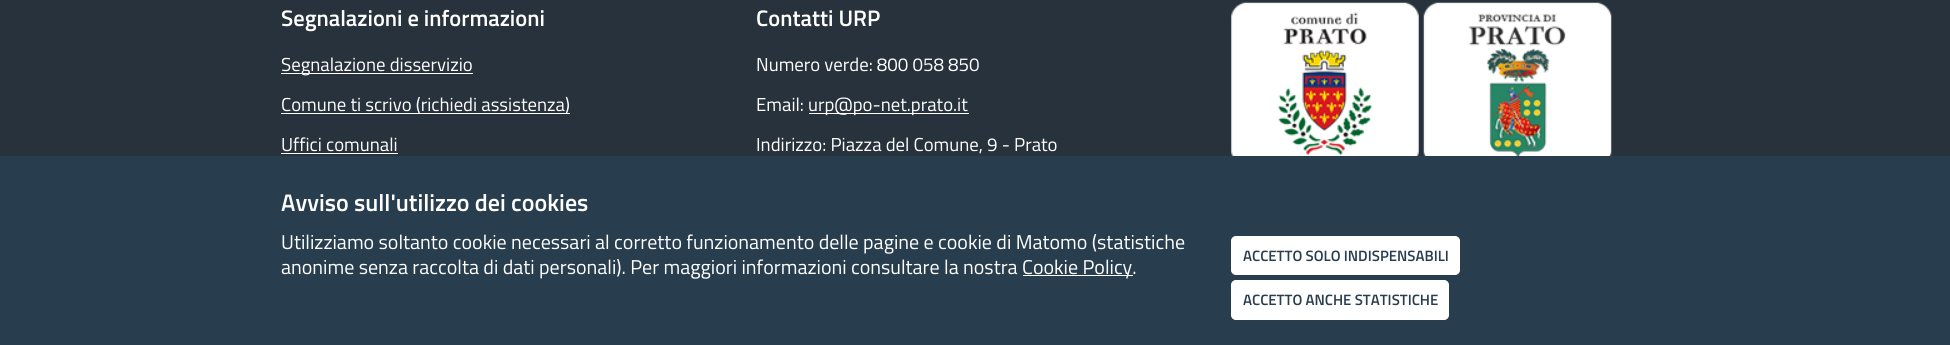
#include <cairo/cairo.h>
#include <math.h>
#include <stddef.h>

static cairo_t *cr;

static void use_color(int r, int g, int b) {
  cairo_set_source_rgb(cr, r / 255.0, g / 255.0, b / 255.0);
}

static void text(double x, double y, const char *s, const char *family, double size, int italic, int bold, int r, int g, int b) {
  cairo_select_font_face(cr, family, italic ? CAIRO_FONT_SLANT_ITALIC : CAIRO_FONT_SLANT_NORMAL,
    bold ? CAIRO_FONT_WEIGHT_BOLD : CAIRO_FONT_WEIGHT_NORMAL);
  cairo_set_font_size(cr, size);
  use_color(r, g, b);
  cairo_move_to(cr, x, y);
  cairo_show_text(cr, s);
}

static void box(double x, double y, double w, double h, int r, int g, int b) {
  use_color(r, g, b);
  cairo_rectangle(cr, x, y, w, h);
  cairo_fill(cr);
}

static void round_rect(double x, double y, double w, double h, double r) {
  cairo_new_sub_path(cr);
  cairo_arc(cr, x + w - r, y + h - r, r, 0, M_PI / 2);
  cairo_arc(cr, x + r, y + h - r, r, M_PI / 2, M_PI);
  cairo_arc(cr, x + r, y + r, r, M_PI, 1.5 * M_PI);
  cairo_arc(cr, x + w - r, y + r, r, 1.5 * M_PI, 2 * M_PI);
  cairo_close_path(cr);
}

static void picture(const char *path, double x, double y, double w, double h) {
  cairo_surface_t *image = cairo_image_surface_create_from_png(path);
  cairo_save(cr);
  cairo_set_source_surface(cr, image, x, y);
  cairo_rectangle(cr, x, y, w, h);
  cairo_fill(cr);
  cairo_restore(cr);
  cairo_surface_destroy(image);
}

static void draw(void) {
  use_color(40, 50, 60);
  cairo_paint(cr);
  box(281, 73, 192, 1, 255, 255, 255);
  box(281, 113, 289, 1, 255, 255, 255);
  box(281, 153, 117, 1, 255, 255, 255);
  box(809, 113, 160, 1, 255, 255, 255);
  picture("img_01.png", 1231, 2, 188, 154);
  picture("img_02.png", 1423, 2, 189, 154);
  box(0, 156, 1950, 189, 40, 61, 78);
  box(1023, 275, 110, 1, 255, 255, 255);
  round_rect(1231.5, 236.5, 228, 38, 4.5);
  cairo_fill_preserve(cr);
  cairo_set_line_width(cr, 1);
  cairo_stroke(cr);
  round_rect(1231.5, 280.5, 217, 39, 4.5);
  cairo_fill_preserve(cr);
  cairo_stroke(cr);
  text(281, 26, "Segnalazioni e informazioni", "Titillium Web SemiBold", 22.5, 0, 0, 255, 255, 255);
  text(281, 71, "Segnalazione disservizio", "Titillium Web", 18.75, 0, 0, 255, 255, 255);
  text(281, 111, "Comune ti scrivo (richiedi assistenza)", "Titillium Web", 18.75, 0, 0, 255, 255, 255);
  text(281, 151, "Uffici comunali", "Titillium Web", 18.75, 0, 0, 255, 255, 255);
  text(756, 26, "Contatti URP", "Titillium Web SemiBold", 22.5, 0, 0, 255, 255, 255);
  text(756, 71, "Numero verde: 800 058 850", "Titillium Web", 18.75, 0, 0, 255, 255, 255);
  text(756, 111, "Email:", "Titillium Web", 18.75, 0, 0, 255, 255, 255);
  text(808, 111, "urp@po-net.prato.it", "Titillium Web", 18.75, 0, 0, 255, 255, 255);
  text(756, 151, "Indirizzo: Piazza del Comune, 9 - Prato", "Titillium Web", 18.75, 0, 0, 255, 255, 255);
  text(281, 211, "Avviso sull'utilizzo dei cookies", "Titillium Web SemiBold", 24, 0, 0, 255, 255, 255);
  text(281, 249, "Utilizziamo soltanto cookie necessari al corretto funzionamento delle pagine e cookie di Matomo (statistiche", "Titillium Web", 20, 0, 0, 255, 255, 255);
  text(281, 274, "anonime senza raccolta di dati personali). Per maggiori informazioni consultare la nostra", "Titillium Web", 20, 0, 0, 255, 255, 255);
  text(1022, 274, "Cookie Policy.", "Titillium Web", 20, 0, 0, 255, 255, 255);
  text(1243, 261, "ACCETTO SOLO INDISPENSABILI", "Titillium Web SemiBold", 15, 0, 0, 40, 61, 78);
  text(1243, 305, "ACCETTO ANCHE STATISTICHE", "Titillium Web SemiBold", 15, 0, 0, 40, 61, 78);
}

int main(void) {
  cairo_surface_t *surface = cairo_image_surface_create(CAIRO_FORMAT_RGB24, 1950, 345);
  cr = cairo_create(surface);
  cairo_font_options_t *options = cairo_font_options_create();
  cairo_font_options_set_hint_metrics(options, CAIRO_HINT_METRICS_OFF);
  cairo_font_options_set_hint_style(options, CAIRO_HINT_STYLE_NONE);
  cairo_set_font_options(cr, options);
  cairo_set_miter_limit(cr, 4);
  draw();
  cairo_surface_write_to_png(surface, "out.png");
  cairo_font_options_destroy(options);
  cairo_destroy(cr);
  cairo_surface_destroy(surface);
  return 0;
}
